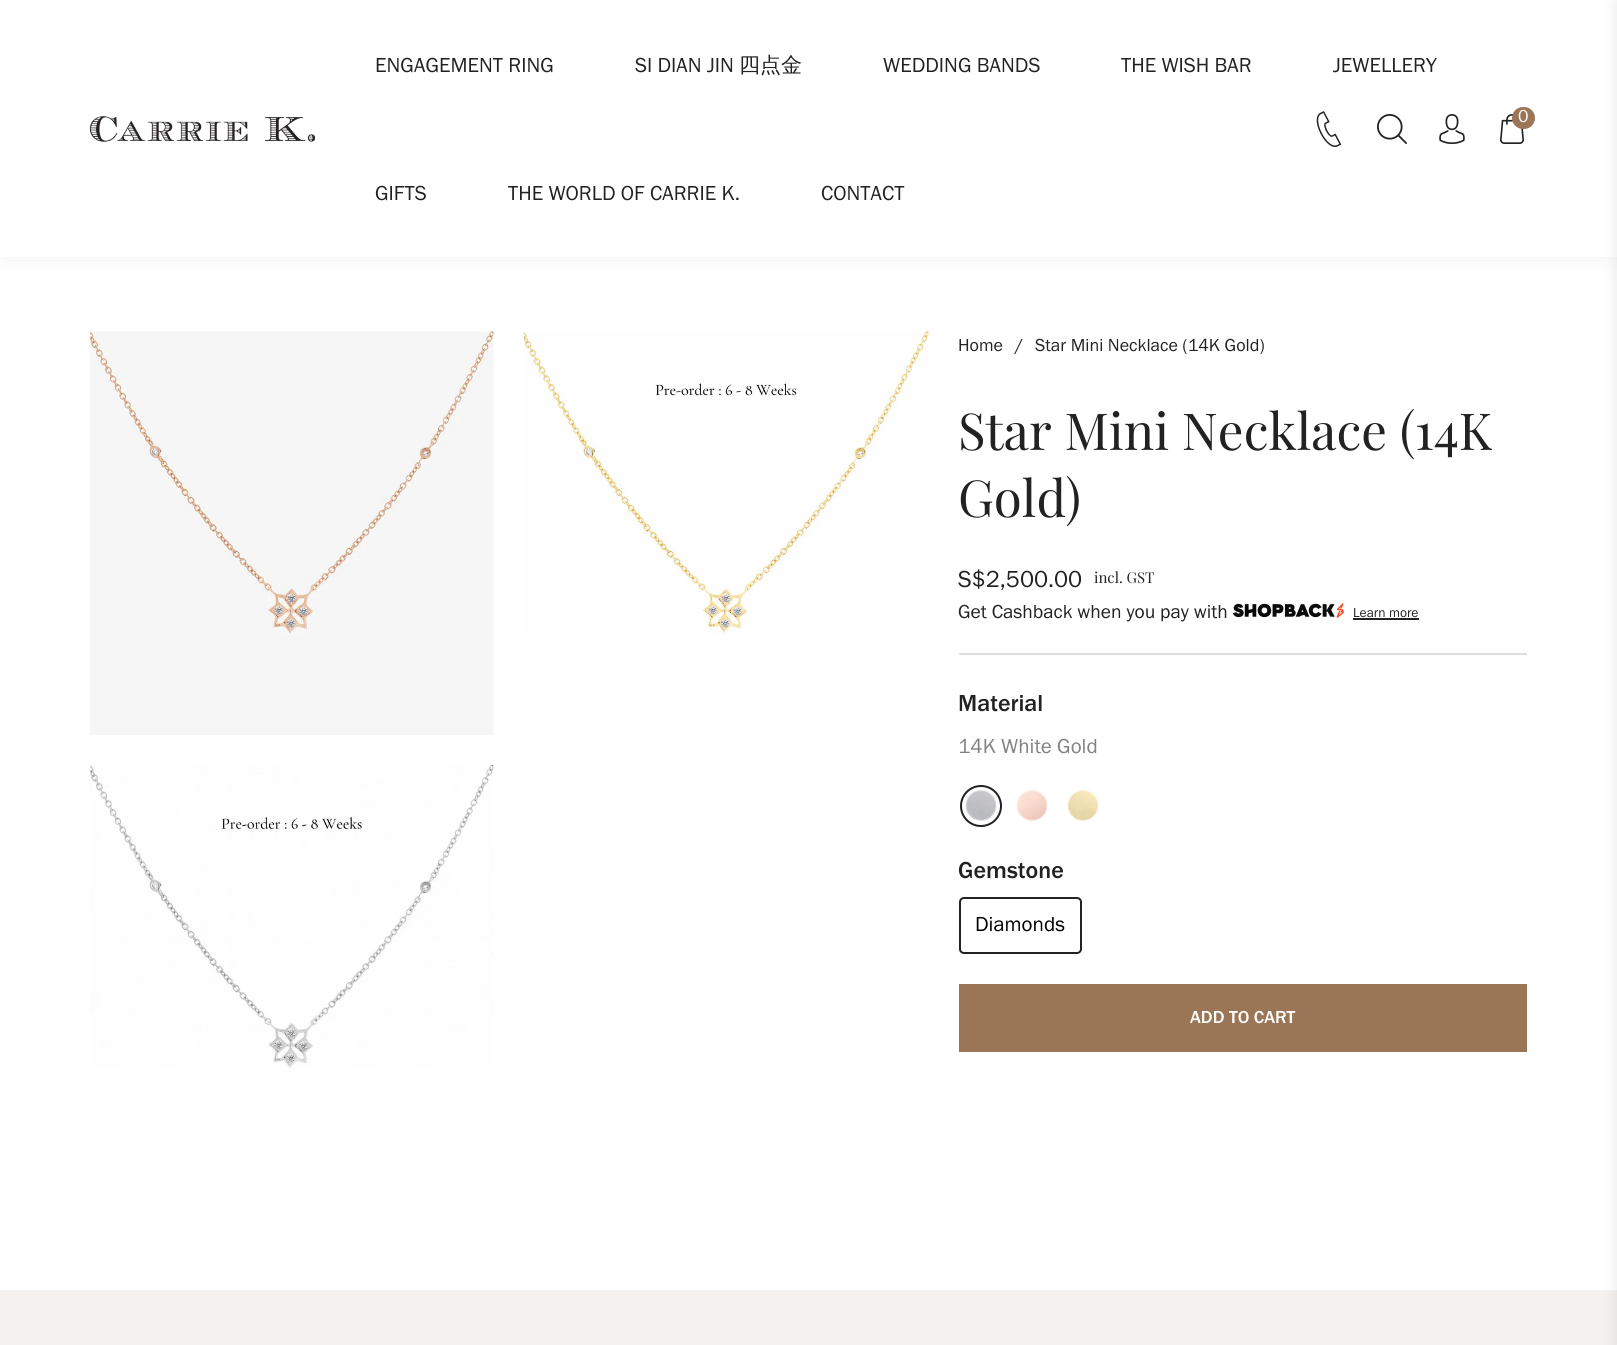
#include <cairo/cairo.h>
#include <math.h>
#include <stddef.h>

static cairo_t *cr;

static void use_color(int r, int g, int b) {
  cairo_set_source_rgb(cr, r / 255.0, g / 255.0, b / 255.0);
}

static void text(double x, double y, const char *s, const char *family, double size, int italic, int bold, int r, int g, int b) {
  cairo_select_font_face(cr, family, italic ? CAIRO_FONT_SLANT_ITALIC : CAIRO_FONT_SLANT_NORMAL,
    bold ? CAIRO_FONT_WEIGHT_BOLD : CAIRO_FONT_WEIGHT_NORMAL);
  cairo_set_font_size(cr, size);
  use_color(r, g, b);
  cairo_move_to(cr, x, y);
  cairo_show_text(cr, s);
}

static void box(double x, double y, double w, double h, int r, int g, int b) {
  use_color(r, g, b);
  cairo_rectangle(cr, x, y, w, h);
  cairo_fill(cr);
}

static void round_rect(double x, double y, double w, double h, double r) {
  cairo_new_sub_path(cr);
  cairo_arc(cr, x + w - r, y + h - r, r, 0, M_PI / 2);
  cairo_arc(cr, x + r, y + h - r, r, M_PI / 2, M_PI);
  cairo_arc(cr, x + r, y + r, r, M_PI, 1.5 * M_PI);
  cairo_arc(cr, x + w - r, y + r, r, 1.5 * M_PI, 2 * M_PI);
  cairo_close_path(cr);
}

static void shadow(double x, double y, double w, double h, double r, double blur, double alpha) {
  cairo_push_group_with_content(cr, CAIRO_CONTENT_ALPHA);
  cairo_set_operator(cr, CAIRO_OPERATOR_SOURCE);
  for (int i = 15; i >= -15 && fmin(w, h) + blur * i / 3 > 0; i -= 2) {
    double e = blur * i / 6;
    cairo_set_source_rgba(cr, 0, 0, 0, alpha * erfc((i - 1) / 8.5) / 2);
    round_rect(x - e, y - e, w + 2 * e, h + 2 * e, fmax(0, fmin(r + e + blur * .6, fmin(w, h) / 2 + e)));
    cairo_fill(cr);
  }
  cairo_pattern_t *soft = cairo_pop_group(cr);
  cairo_mask(cr, soft);
  cairo_pattern_destroy(soft);
}

static void picture(const char *path, double x, double y, double w, double h) {
  cairo_surface_t *image = cairo_image_surface_create_from_png(path);
  cairo_save(cr);
  cairo_set_source_surface(cr, image, x, y);
  cairo_rectangle(cr, x, y, w, h);
  cairo_fill(cr);
  cairo_restore(cr);
  cairo_surface_destroy(image);
}

static void draw(void) {
  use_color(255, 255, 255);
  cairo_paint(cr);
  use_color(0, 0, 0);
  shadow(0, 3, 1617, 257, 0, 12, 0.04);
  box(0, 0, 1617, 257, 255, 255, 255);
  picture("img_01.png", 90, 116, 225, 26);
  picture("img_02.png", 1316, 111, 26, 36);
  picture("img_03.png", 1377, 114, 30, 30);
  picture("img_04.png", 1439, 114, 26, 30);
  picture("img_05.png", 1500, 114, 24, 30);
  use_color(155, 118, 86);
  round_rect(1512, 107, 23, 22, 11);
  cairo_fill(cr);
  box(0, 1290, 1617, 55, 245, 241, 238);
  use_color(0, 0, 0);
  shadow(1617, 2, 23, 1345, 0, 7.5, 0.1);
  picture("img_06.png", 90, 331, 404, 404);
  picture("img_07.png", 523, 331, 406, 305);
  picture("img_08.png", 90, 765, 404, 303);
  box(959, 653, 568, 2, 221, 221, 221);
  picture("img_09.png", 1233, 603, 111, 15);
  box(1353, 618, 66, 2, 34, 34, 34);
  picture("img_10.png", 965, 790, 32, 31);
  cairo_arc(cr, 981, 806, 20, 0, 2 * M_PI);
  cairo_stroke(cr);
  picture("img_11.png", 1016, 790, 32, 31);
  picture("img_12.png", 1067, 790, 32, 31);
  round_rect(960, 898, 121, 55, 4);
  cairo_stroke(cr);
  box(959, 984, 568, 68, 155, 118, 86);
  text(375, 72, "ENGAGEMENT RING", "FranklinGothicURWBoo", 21, 0, 0, 34, 34, 34);
  text(635, 72, "SI DIAN JIN", "FranklinGothicURWBoo", 21, 0, 0, 34, 34, 34);
  text(739, 72, "四点金", "WenQuanYi Zen Hei Medium", 21, 0, 0, 34, 34, 34);
  text(883, 72, "WEDDING BANDS", "FranklinGothicURWBoo", 21, 0, 0, 34, 34, 34);
  text(1121, 72, "THE WISH BAR", "FranklinGothicURWBoo", 21, 0, 0, 34, 34, 34);
  text(1333, 72, "JEWELLERY", "FranklinGothicURWBoo", 21, 0, 0, 34, 34, 34);
  text(375, 200, "GIFTS", "FranklinGothicURWBoo", 21, 0, 0, 34, 34, 34);
  text(508, 200, "THE WORLD OF CARRIE K.", "FranklinGothicURWBoo", 21, 0, 0, 34, 34, 34);
  text(821, 200, "CONTACT", "FranklinGothicURWBoo", 21, 0, 0, 34, 34, 34);
  text(1518, 122, "0", "FranklinGothicURWBoo", 18, 0, 0, 255, 255, 255);
  text(958, 351, "Home", "FranklinGothicURWBoo", 18, 0, 0, 34, 34, 34);
  text(1015, 351, "/", "FranklinGothicURWBoo", 18, 0, 0, 34, 34, 34);
  text(1035, 351, "Star Mini Necklace (14K Gold)", "FranklinGothicURWBoo", 18, 0, 0, 34, 34, 34);
  text(958, 450, "Star Mini Necklace (14K", "Playfair Display", 51, 0, 0, 34, 34, 34);
  text(958, 517, "Gold)", "Playfair Display", 51, 0, 0, 34, 34, 34);
  text(958, 587, "S$2,500.00", "FranklinGothicURWBoo", 24, 0, 0, 34, 34, 34);
  text(1094, 583, "incl. GST", "Playfair Display", 15, 0, 0, 34, 34, 34);
  text(958, 618, "Get Cashback when you pay with", "FranklinGothicURWBoo", 19.5, 0, 0, 34, 34, 34);
  text(1353, 617, "Learn more", "FranklinGothicURWBoo", 13.5, 0, 0, 34, 34, 34);
  text(958, 711, "Material", "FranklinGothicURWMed", 24, 0, 0, 34, 34, 34);
  text(958, 753, "14K White Gold", "FranklinGothicURWBoo", 21, 0, 0, 130, 130, 130);
  text(958, 878, "Gemstone", "FranklinGothicURWMed", 24, 0, 0, 34, 34, 34);
  text(975, 931, "Diamonds", "FranklinGothicURWBoo", 21, 0, 0, 0, 0, 0);
  text(1190, 1023, "ADD TO CART", "FranklinGothicURWMed", 18, 0, 0, 255, 255, 255);
}

int main(void) {
  cairo_surface_t *surface = cairo_image_surface_create(CAIRO_FORMAT_RGB24, 1617, 1345);
  cr = cairo_create(surface);
  cairo_font_options_t *options = cairo_font_options_create();
  cairo_font_options_set_hint_metrics(options, CAIRO_HINT_METRICS_OFF);
  cairo_font_options_set_hint_style(options, CAIRO_HINT_STYLE_NONE);
  cairo_set_font_options(cr, options);
  cairo_set_miter_limit(cr, 4);
  draw();
  cairo_surface_write_to_png(surface, "out.png");
  cairo_font_options_destroy(options);
  cairo_destroy(cr);
  cairo_surface_destroy(surface);
  return 0;
}
